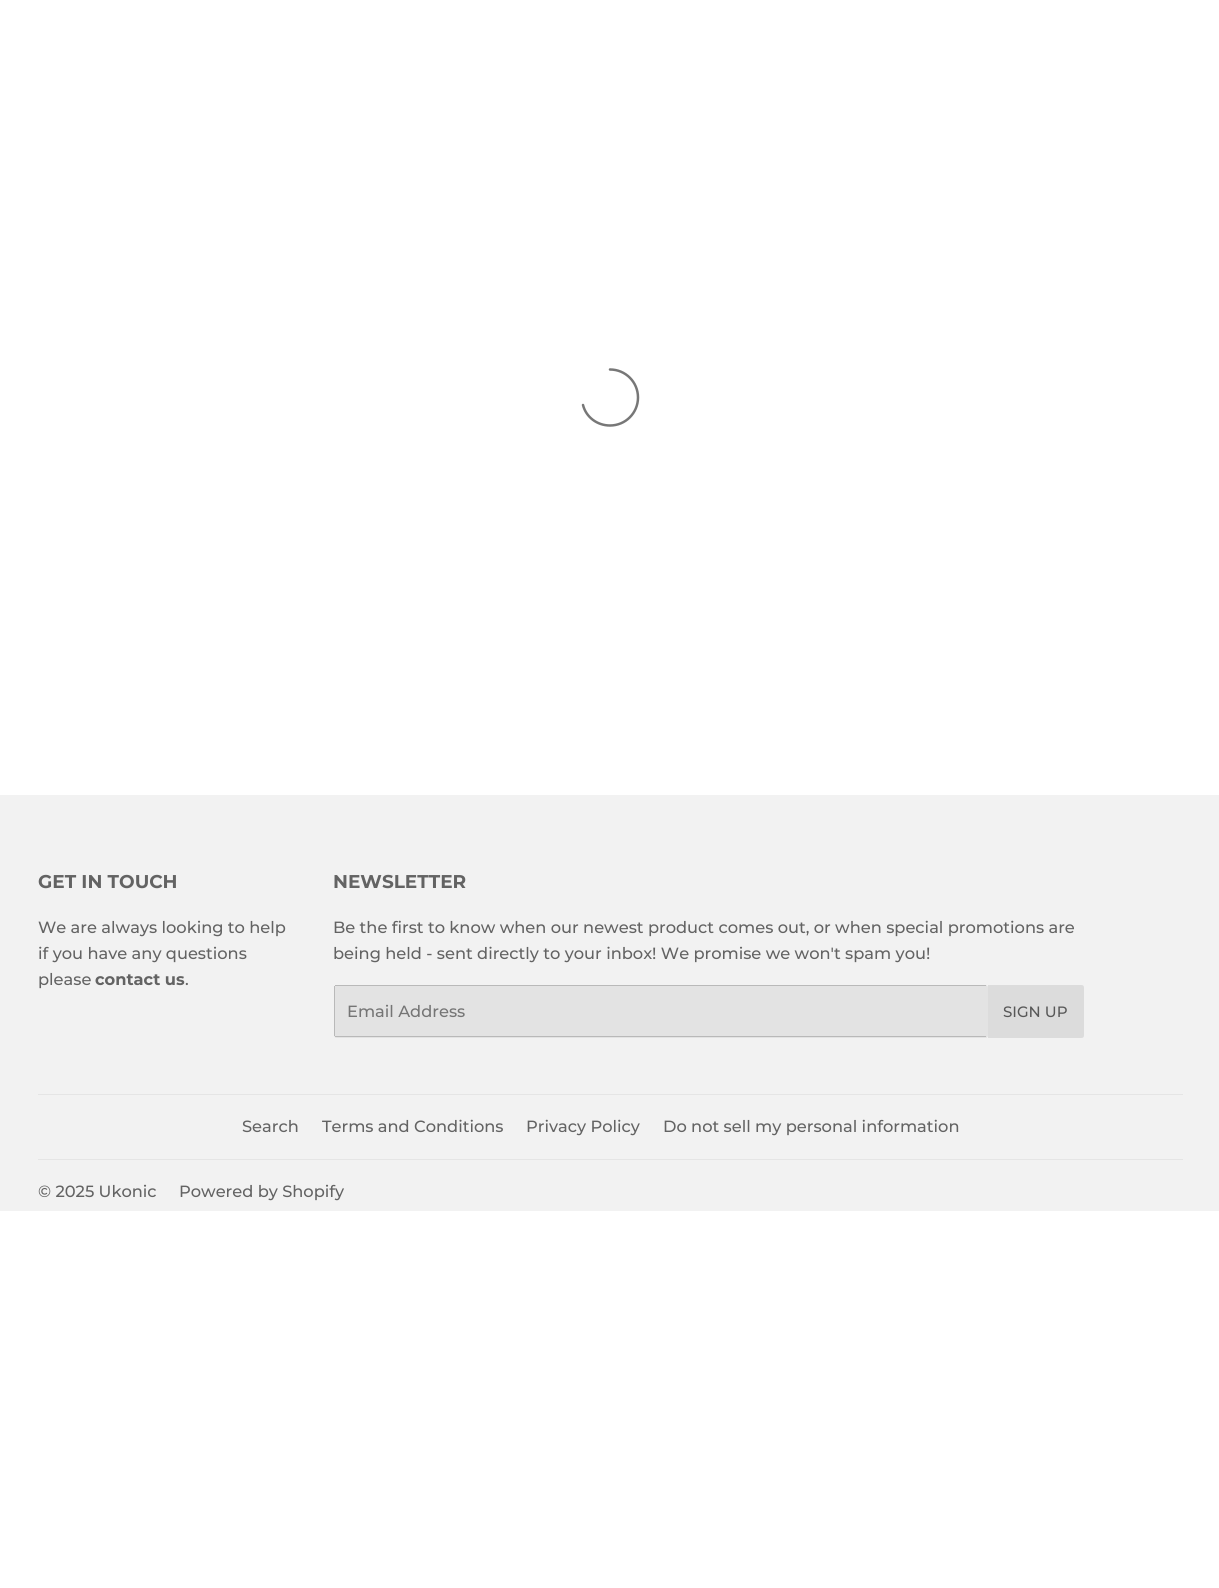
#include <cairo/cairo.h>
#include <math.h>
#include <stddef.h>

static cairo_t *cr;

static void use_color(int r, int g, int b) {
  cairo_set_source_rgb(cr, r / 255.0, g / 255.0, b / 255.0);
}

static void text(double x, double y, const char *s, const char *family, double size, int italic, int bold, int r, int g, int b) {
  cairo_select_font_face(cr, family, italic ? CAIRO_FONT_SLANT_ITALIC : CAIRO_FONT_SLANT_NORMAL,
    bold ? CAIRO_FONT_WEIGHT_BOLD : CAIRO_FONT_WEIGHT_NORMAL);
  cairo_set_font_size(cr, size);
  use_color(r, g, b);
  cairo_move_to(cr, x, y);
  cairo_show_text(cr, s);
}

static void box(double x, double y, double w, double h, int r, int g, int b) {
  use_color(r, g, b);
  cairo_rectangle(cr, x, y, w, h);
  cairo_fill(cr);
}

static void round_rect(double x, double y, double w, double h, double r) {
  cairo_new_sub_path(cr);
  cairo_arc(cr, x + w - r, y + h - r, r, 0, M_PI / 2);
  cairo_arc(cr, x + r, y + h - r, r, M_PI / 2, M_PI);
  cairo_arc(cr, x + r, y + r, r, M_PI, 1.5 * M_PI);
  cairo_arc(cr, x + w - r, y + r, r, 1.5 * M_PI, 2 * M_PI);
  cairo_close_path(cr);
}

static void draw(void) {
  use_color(255, 255, 255);
  cairo_paint(cr);
  cairo_new_path(cr);
  cairo_move_to(cr, 610, 369.5);
  cairo_curve_to(cr, 625.5, 369.5, 638, 382, 638, 397.5);
  cairo_curve_to(cr, 638, 413, 625.5, 425.5, 610, 425.5);
  cairo_curve_to(cr, 597, 425.5, 586, 417, 583, 405);
  use_color(119, 119, 119);
  cairo_set_line_width(cr, 2.5);
  cairo_set_line_cap(cr, CAIRO_LINE_CAP_ROUND);
  cairo_stroke(cr);
  box(0, 795, 1219, 416, 242, 242, 242);
  use_color(227, 227, 227);
  round_rect(334, 985, 654, 53, 2.5);
  cairo_fill(cr);
  box(335, 985, 651, 1, 185, 185, 185);
  box(335, 1036, 651, 1, 185, 185, 185);
  box(334, 986, 1, 50, 185, 185, 185);
  use_color(220, 220, 220);
  cairo_new_path(cr);
  cairo_move_to(cr, 988, 985);
  cairo_line_to(cr, 1081.5, 985);
  cairo_curve_to(cr, 1083, 985, 1084, 986, 1084, 987.5);
  cairo_line_to(cr, 1084, 1035.5);
  cairo_curve_to(cr, 1084, 1037, 1083, 1038, 1081.5, 1038);
  cairo_line_to(cr, 988, 1038);
  cairo_close_path(cr);
  cairo_fill(cr);
  box(38, 1094, 1145, 1, 229, 229, 229);
  box(38, 1159, 1145, 1, 229, 229, 229);
  text(38, 888, "GET IN TOUCH", "Montserrat", 18.5, 0, 1, 99, 99, 99);
  text(38, 933, "We are always looking to help", "Montserrat Medium", 16.25, 0, 0, 99, 99, 99);
  text(38, 959, "if you have any questions", "Montserrat Medium", 16.25, 0, 0, 99, 99, 99);
  text(38, 985, "please", "Montserrat Medium", 16.25, 0, 0, 99, 99, 99);
  text(95, 985, "contact us", "Montserrat", 16.25, 0, 1, 99, 99, 99);
  text(185, 985, ".", "Montserrat Medium", 16.25, 0, 0, 99, 99, 99);
  text(333, 888, "NEWSLETTER", "Montserrat", 18.5, 0, 1, 99, 99, 99);
  text(333, 933, "Be the first to know when our newest product comes out, or when special promotions are", "Montserrat Medium", 16.25, 0, 0, 99, 99, 99);
  text(333, 959, "being held - sent directly to your inbox! We promise we won't spam you!", "Montserrat Medium", 16.25, 0, 0, 99, 99, 99);
  text(347, 1017, "Email Address", "Montserrat Medium", 16.25, 0, 0, 117, 117, 117);
  text(1003, 1017, "SIGN UP", "Montserrat Medium", 15, 0, 0, 88, 88, 88);
  text(242, 1132, "Search", "Montserrat Medium", 16.25, 0, 0, 99, 99, 99);
  text(322, 1132, "Terms and Conditions", "Montserrat Medium", 16.25, 0, 0, 99, 99, 99);
  text(526, 1132, "Privacy Policy", "Montserrat Medium", 16.25, 0, 0, 99, 99, 99);
  text(663, 1132, "Do not sell my personal information", "Montserrat Medium", 16.25, 0, 0, 99, 99, 99);
  text(38, 1197, "© 2025 Ukonic", "Montserrat Medium", 16.25, 0, 0, 99, 99, 99);
  text(179, 1197, "Powered by Shopify", "Montserrat Medium", 16.25, 0, 0, 99, 99, 99);
}

int main(void) {
  cairo_surface_t *surface = cairo_image_surface_create(CAIRO_FORMAT_RGB24, 1219, 1588);
  cr = cairo_create(surface);
  cairo_font_options_t *options = cairo_font_options_create();
  cairo_font_options_set_hint_metrics(options, CAIRO_HINT_METRICS_OFF);
  cairo_font_options_set_hint_style(options, CAIRO_HINT_STYLE_NONE);
  cairo_set_font_options(cr, options);
  cairo_set_miter_limit(cr, 4);
  draw();
  cairo_surface_write_to_png(surface, "out.png");
  cairo_font_options_destroy(options);
  cairo_destroy(cr);
  cairo_surface_destroy(surface);
  return 0;
}
